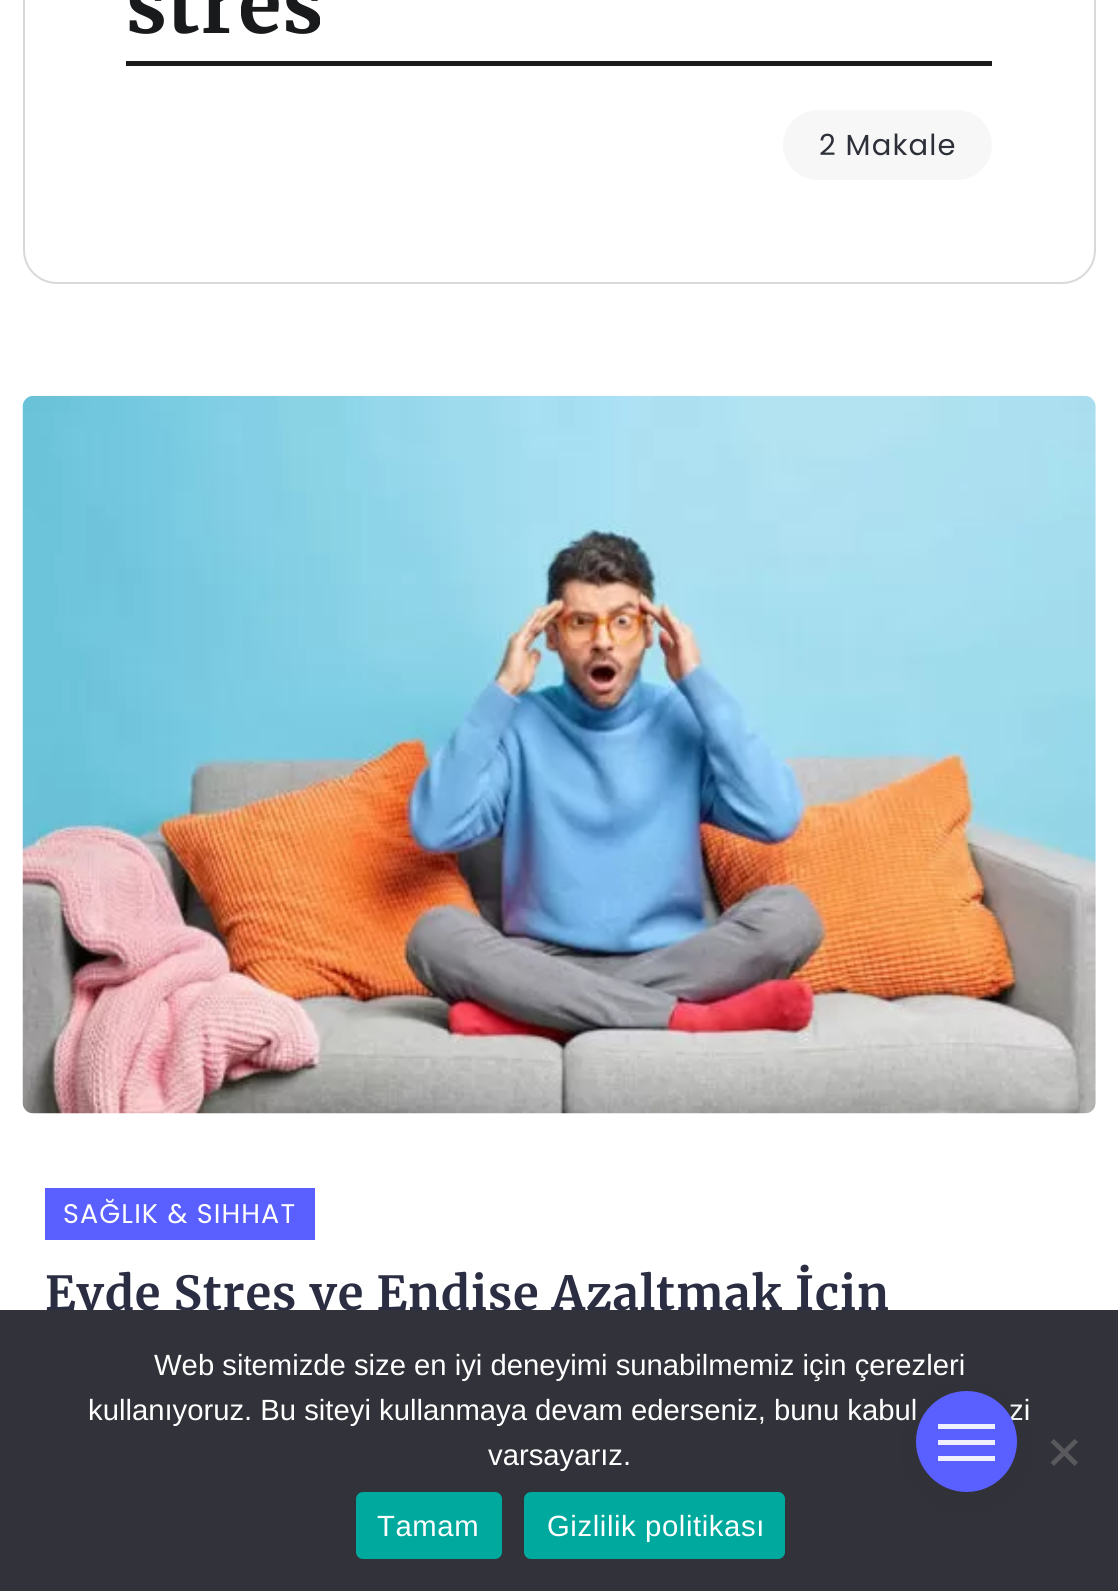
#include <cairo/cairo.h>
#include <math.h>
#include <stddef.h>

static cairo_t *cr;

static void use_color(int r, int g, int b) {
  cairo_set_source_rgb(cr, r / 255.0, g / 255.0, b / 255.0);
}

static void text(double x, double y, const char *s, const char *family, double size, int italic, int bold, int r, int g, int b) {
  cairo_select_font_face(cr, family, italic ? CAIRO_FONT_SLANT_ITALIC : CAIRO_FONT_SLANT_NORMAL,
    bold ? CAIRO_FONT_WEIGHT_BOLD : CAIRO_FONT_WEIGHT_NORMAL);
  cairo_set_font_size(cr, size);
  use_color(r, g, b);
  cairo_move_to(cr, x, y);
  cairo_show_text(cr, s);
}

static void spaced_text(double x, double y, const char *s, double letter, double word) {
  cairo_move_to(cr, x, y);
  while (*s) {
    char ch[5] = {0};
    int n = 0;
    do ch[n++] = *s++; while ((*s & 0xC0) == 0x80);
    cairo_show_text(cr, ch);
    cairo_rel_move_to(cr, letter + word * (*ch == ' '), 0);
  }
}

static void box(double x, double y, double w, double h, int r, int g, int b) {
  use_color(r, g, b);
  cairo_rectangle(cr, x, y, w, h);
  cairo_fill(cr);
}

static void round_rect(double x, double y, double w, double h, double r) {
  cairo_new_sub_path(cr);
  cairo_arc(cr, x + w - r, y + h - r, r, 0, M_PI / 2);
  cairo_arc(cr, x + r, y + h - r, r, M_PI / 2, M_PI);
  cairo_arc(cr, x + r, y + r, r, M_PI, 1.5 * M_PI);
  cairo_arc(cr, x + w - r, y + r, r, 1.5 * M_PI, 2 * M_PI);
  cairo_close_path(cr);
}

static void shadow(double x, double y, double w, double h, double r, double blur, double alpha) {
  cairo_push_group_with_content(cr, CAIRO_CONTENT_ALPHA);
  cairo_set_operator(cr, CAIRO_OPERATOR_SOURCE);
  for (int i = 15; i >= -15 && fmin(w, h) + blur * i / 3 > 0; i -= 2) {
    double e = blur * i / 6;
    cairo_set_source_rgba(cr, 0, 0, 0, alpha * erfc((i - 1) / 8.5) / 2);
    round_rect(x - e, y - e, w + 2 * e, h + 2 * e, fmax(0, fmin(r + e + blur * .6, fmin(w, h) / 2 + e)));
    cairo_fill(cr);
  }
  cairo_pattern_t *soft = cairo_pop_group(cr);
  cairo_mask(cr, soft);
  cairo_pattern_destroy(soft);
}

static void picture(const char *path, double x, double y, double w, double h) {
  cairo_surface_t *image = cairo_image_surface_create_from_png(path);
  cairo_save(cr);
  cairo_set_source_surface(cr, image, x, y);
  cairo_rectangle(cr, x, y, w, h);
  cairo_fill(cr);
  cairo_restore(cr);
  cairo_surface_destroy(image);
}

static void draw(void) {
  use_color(255, 255, 255);
  cairo_paint(cr);
  round_rect(24, -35, 1071, 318, 33);
  use_color(217, 217, 218);
  cairo_stroke(cr);
  box(126, 61, 866, 5, 25, 26, 27);
  use_color(247, 247, 247);
  round_rect(783, 110, 209, 70, 35);
  cairo_fill(cr);
  picture("img_01.png", 22, 395, 1074, 719);
  box(45, 1188, 270, 52, 89, 96, 255);
  cairo_select_font_face(cr, "Merriweather Light", CAIRO_FONT_SLANT_NORMAL, CAIRO_FONT_WEIGHT_NORMAL);
  cairo_set_font_size(cr, 79);
  use_color(25, 26, 27);
  spaced_text(126, 33, "stres", 1.1, 0);
  cairo_select_font_face(cr, "Poppins", CAIRO_FONT_SLANT_NORMAL, CAIRO_FONT_WEIGHT_NORMAL);
  cairo_set_font_size(cr, 29);
  use_color(46, 48, 57);
  spaced_text(819, 155, "2 Makale", 1.1, 0);
  cairo_set_font_size(cr, 27);
  use_color(255, 255, 255);
  spaced_text(63, 1223, "SAĞLIK & SIHHAT", 1.1, 0);
  cairo_select_font_face(cr, "Merriweather Light", CAIRO_FONT_SLANT_NORMAL, CAIRO_FONT_WEIGHT_NORMAL);
  cairo_set_font_size(cr, 46.75);
  use_color(43, 45, 66);
  spaced_text(45, 1310, "Evde Stres ve Endişe Azaltmak İçin", 1.1, 0);
  box(0, 1310, 1118, 281, 50, 50, 58);
  text(154, 1375, "Web sitemizde size en iyi deneyimi sunabilmemiz için çerezleri", "Liberation Sans", 29.25, 0, 0, 255, 255, 255);
  text(88, 1420, "kullanıyoruz. Bu siteyi kullanmaya devam ederseniz, bunu kabul", "Liberation Sans", 29.25, 0, 0, 255, 255, 255);
  text(1009, 1420, "zi", "Liberation Sans", 29.25, 0, 0, 255, 255, 255);
  text(488, 1465, "varsayarız.", "Liberation Sans", 29.25, 0, 0, 255, 255, 255);
  use_color(89, 89, 93);
  cairo_new_path(cr);
  cairo_move_to(cr, 1074.5, 1439);
  cairo_line_to(cr, 1078, 1442);
  cairo_line_to(cr, 1054, 1466);
  cairo_line_to(cr, 1050.5, 1462.5);
  cairo_close_path(cr);
  cairo_fill(cr);
  cairo_new_path(cr);
  cairo_move_to(cr, 1050.5, 1442);
  cairo_line_to(cr, 1054, 1439);
  cairo_line_to(cr, 1078, 1462.5);
  cairo_line_to(cr, 1074.5, 1466);
  cairo_close_path(cr);
  cairo_fill(cr);
  use_color(0, 169, 157);
  round_rect(356, 1492, 146, 67, 7);
  cairo_fill(cr);
  use_color(255, 255, 255);
  spaced_text(377, 1536, "Tamam", 0.6, 0);
  use_color(0, 169, 157);
  round_rect(524, 1492, 261, 67, 7);
  cairo_fill(cr);
  use_color(255, 255, 255);
  spaced_text(547, 1536, "Gizlilik politikası", 0.6, 0);
  use_color(40, 41, 47);
  shadow(916, 1397, 101, 102, 50.5, 13.5, 0.24);
  use_color(89, 96, 255);
  cairo_arc(cr, 966.5, 1441.5, 50.5, 0, 2 * M_PI);
  cairo_fill(cr);
  box(938, 1424, 57, 5, 238, 239, 255);
  box(938, 1440, 57, 5, 238, 239, 255);
  box(938, 1456, 57, 5, 238, 239, 255);
}

int main(void) {
  cairo_surface_t *surface = cairo_image_surface_create(CAIRO_FORMAT_RGB24, 1118, 1591);
  cr = cairo_create(surface);
  cairo_font_options_t *options = cairo_font_options_create();
  cairo_font_options_set_hint_metrics(options, CAIRO_HINT_METRICS_OFF);
  cairo_font_options_set_hint_style(options, CAIRO_HINT_STYLE_NONE);
  cairo_set_font_options(cr, options);
  cairo_set_miter_limit(cr, 4);
  draw();
  cairo_surface_write_to_png(surface, "out.png");
  cairo_font_options_destroy(options);
  cairo_destroy(cr);
  cairo_surface_destroy(surface);
  return 0;
}
